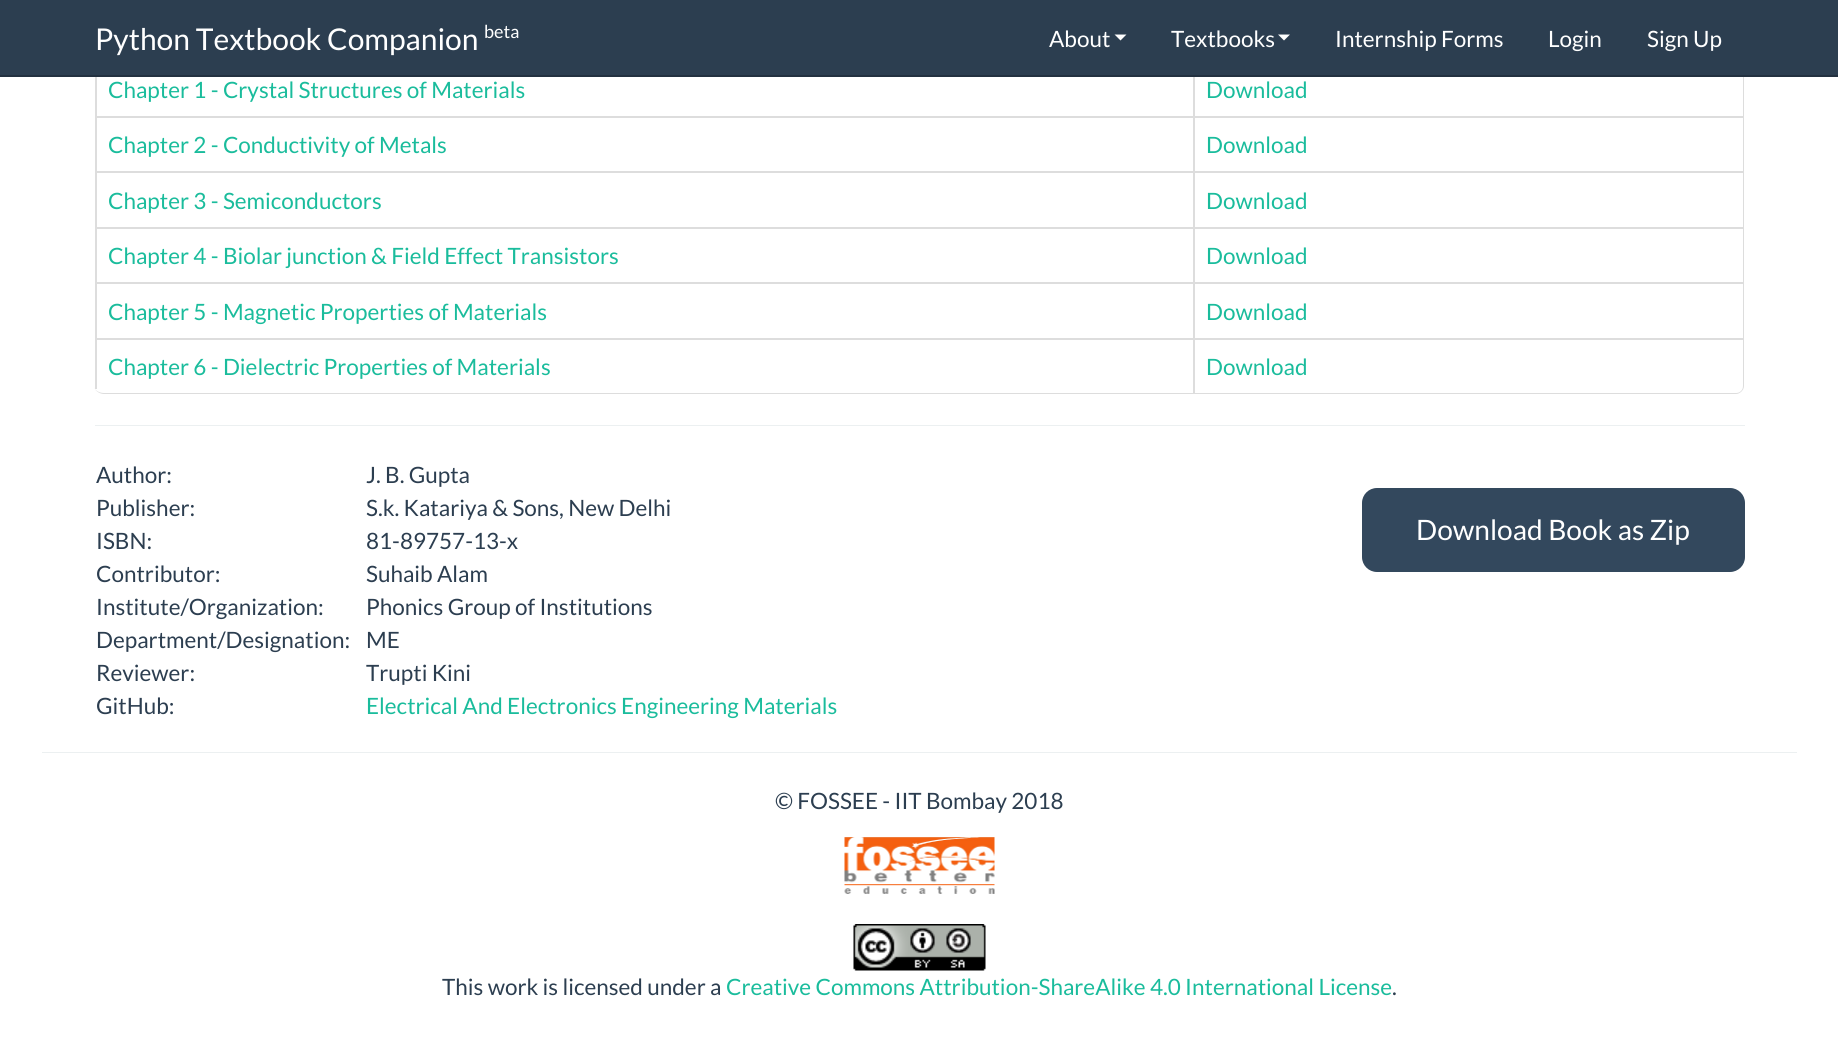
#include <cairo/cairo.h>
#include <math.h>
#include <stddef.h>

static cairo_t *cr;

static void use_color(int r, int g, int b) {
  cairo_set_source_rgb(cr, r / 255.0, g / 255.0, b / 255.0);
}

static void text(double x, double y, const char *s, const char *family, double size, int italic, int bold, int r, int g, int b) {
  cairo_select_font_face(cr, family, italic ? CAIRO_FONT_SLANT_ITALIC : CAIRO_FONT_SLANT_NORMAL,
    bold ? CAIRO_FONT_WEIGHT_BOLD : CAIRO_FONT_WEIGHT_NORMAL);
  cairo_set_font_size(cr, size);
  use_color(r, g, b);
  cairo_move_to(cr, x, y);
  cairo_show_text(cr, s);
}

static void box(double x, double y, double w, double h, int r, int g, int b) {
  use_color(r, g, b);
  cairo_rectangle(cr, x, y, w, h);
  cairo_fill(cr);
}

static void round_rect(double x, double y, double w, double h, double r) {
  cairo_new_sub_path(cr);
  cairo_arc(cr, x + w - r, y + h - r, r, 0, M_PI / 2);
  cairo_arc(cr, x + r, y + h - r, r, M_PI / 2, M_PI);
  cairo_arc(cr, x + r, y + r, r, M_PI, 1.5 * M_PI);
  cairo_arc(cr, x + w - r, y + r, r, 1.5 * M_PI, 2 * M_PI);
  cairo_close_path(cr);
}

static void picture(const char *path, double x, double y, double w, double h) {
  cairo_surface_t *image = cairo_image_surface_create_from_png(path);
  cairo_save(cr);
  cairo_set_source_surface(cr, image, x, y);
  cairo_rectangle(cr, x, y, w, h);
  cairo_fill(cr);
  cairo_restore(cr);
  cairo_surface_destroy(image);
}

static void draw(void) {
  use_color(255, 255, 255);
  cairo_paint(cr);
  use_color(221, 221, 221);
  cairo_set_fill_rule(cr, CAIRO_FILL_RULE_EVEN_ODD);
  cairo_new_path(cr);
  cairo_move_to(cr, 104, 4);
  cairo_line_to(cr, 1736, 4);
  cairo_curve_to(cr, 1740, 4, 1744, 9, 1744, 14);
  cairo_line_to(cr, 1744, 386);
  cairo_curve_to(cr, 1744, 390, 1740, 394, 1736, 394);
  cairo_line_to(cr, 104, 394);
  cairo_curve_to(cr, 99, 394, 94, 390, 94, 386);
  cairo_line_to(cr, 94, 14);
  cairo_curve_to(cr, 94, 9, 99, 4, 104, 4);
  cairo_close_path(cr);
  cairo_move_to(cr, 104, 6);
  cairo_line_to(cr, 1736, 6);
  cairo_curve_to(cr, 1740, 6, 1743, 9, 1743, 14);
  cairo_line_to(cr, 1743, 386);
  cairo_curve_to(cr, 1743, 390, 1740, 393, 1736, 393);
  cairo_line_to(cr, 104, 393);
  cairo_curve_to(cr, 99, 393, 94, 390, 94, 386);
  cairo_line_to(cr, 94, 14);
  cairo_curve_to(cr, 94, 9, 99, 6, 104, 6);
  cairo_close_path(cr);
  cairo_fill(cr);
  box(0, 0, 1838, 75, 44, 62, 80);
  box(0, 75, 1838, 2, 35, 49, 64);
  use_color(255, 255, 255);
  cairo_set_fill_rule(cr, CAIRO_FILL_RULE_WINDING);
  cairo_new_path(cr);
  cairo_move_to(cr, 1114.5, 34.5);
  cairo_line_to(cr, 1126.5, 34.5);
  cairo_line_to(cr, 1120.5, 40.5);
  cairo_close_path(cr);
  cairo_fill(cr);
  cairo_new_path(cr);
  cairo_move_to(cr, 1278, 34.5);
  cairo_line_to(cr, 1290, 34.5);
  cairo_line_to(cr, 1284, 40.5);
  cairo_close_path(cr);
  cairo_fill(cr);
  box(95, 77, 2, 39, 221, 221, 221);
  box(1193, 77, 2, 39, 221, 221, 221);
  box(95, 116, 1648, 2, 221, 221, 221);
  box(95, 116, 2, 55, 221, 221, 221);
  box(1193, 116, 2, 55, 221, 221, 221);
  box(95, 171, 1648, 2, 221, 221, 221);
  box(95, 171, 2, 56, 221, 221, 221);
  box(1193, 171, 2, 56, 221, 221, 221);
  box(95, 227, 1648, 2, 221, 221, 221);
  box(95, 227, 2, 55, 221, 221, 221);
  box(1193, 227, 2, 55, 221, 221, 221);
  box(95, 282, 1648, 2, 221, 221, 221);
  box(95, 282, 2, 56, 221, 221, 221);
  box(1193, 282, 2, 56, 221, 221, 221);
  box(95, 338, 1648, 2, 221, 221, 221);
  box(95, 338, 2, 51, 221, 221, 221);
  box(1193, 338, 2, 55, 221, 221, 221);
  box(95, 425, 1650, 1, 236, 240, 241);
  use_color(51, 72, 93);
  round_rect(1362, 488, 383, 84, 15);
  cairo_fill(cr);
  box(42, 752, 1755, 1, 236, 240, 241);
  picture("img_01.png", 844, 837, 151, 57);
  picture("img_02.png", 853, 924, 133, 47);
  text(95, 50, "Python Textbook Companion", "Lato", 30, 0, 0, 255, 255, 255);
  text(484, 38, "beta", "Lato", 18, 0, 0, 255, 255, 255);
  text(1049, 47, "About", "Lato", 22.5, 0, 0, 255, 255, 255);
  text(1171, 47, "Textbooks", "Lato", 22.5, 0, 0, 255, 255, 255);
  text(1335, 47, "Internship Forms", "Lato", 22.5, 0, 0, 255, 255, 255);
  text(1548, 47, "Login", "Lato", 22.5, 0, 0, 255, 255, 255);
  text(1647, 47, "Sign Up", "Lato", 22.5, 0, 0, 255, 255, 255);
  text(108, 98, "Chapter 1 - Crystal Structures of Materials", "Lato", 22.5, 0, 0, 26, 188, 156);
  text(1206, 98, "Download", "Lato", 22.5, 0, 0, 26, 188, 156);
  text(108, 153, "Chapter 2 - Conductivity of Metals", "Lato", 22.5, 0, 0, 26, 188, 156);
  text(1206, 153, "Download", "Lato", 22.5, 0, 0, 26, 188, 156);
  text(108, 209, "Chapter 3 - Semiconductors", "Lato", 22.5, 0, 0, 26, 188, 156);
  text(1206, 209, "Download", "Lato", 22.5, 0, 0, 26, 188, 156);
  text(108, 264, "Chapter 4 - Biolar junction & Field Effect Transistors", "Lato", 22.5, 0, 0, 26, 188, 156);
  text(1206, 264, "Download", "Lato", 22.5, 0, 0, 26, 188, 156);
  text(108, 320, "Chapter 5 - Magnetic Properties of Materials", "Lato", 22.5, 0, 0, 26, 188, 156);
  text(1206, 320, "Download", "Lato", 22.5, 0, 0, 26, 188, 156);
  text(108, 375, "Chapter 6 - Dielectric Properties of Materials", "Lato", 22.5, 0, 0, 26, 188, 156);
  text(1206, 375, "Download", "Lato", 22.5, 0, 0, 26, 188, 156);
  text(96, 483, "Author:", "Lato", 22.5, 0, 0, 44, 62, 80);
  text(366, 483, "J. B. Gupta", "Lato", 22.5, 0, 0, 44, 62, 80);
  text(96, 516, "Publisher:", "Lato", 22.5, 0, 0, 44, 62, 80);
  text(366, 516, "S.k. Katariya & Sons, New Delhi", "Lato", 22.5, 0, 0, 44, 62, 80);
  text(96, 549, "ISBN:", "Lato", 22.5, 0, 0, 44, 62, 80);
  text(366, 549, "81-89757-13-x", "Lato", 22.5, 0, 0, 44, 62, 80);
  text(96, 582, "Contributor:", "Lato", 22.5, 0, 0, 44, 62, 80);
  text(366, 582, "Suhaib Alam", "Lato", 22.5, 0, 0, 44, 62, 80);
  text(96, 615, "Institute/Organization:", "Lato", 22.5, 0, 0, 44, 62, 80);
  text(366, 615, "Phonics Group of Institutions", "Lato", 22.5, 0, 0, 44, 62, 80);
  text(96, 648, "Department/Designation:", "Lato", 22.5, 0, 0, 44, 62, 80);
  text(366, 648, "ME", "Lato", 22.5, 0, 0, 44, 62, 80);
  text(96, 681, "Reviewer:", "Lato", 22.5, 0, 0, 44, 62, 80);
  text(366, 681, "Trupti Kini", "Lato", 22.5, 0, 0, 44, 62, 80);
  text(96, 714, "GitHub:", "Lato", 22.5, 0, 0, 44, 62, 80);
  text(366, 714, "Electrical And Electronics Engineering Materials", "Lato", 22.5, 0, 0, 26, 188, 156);
  text(1416, 540, "Download Book as Zip", "Lato", 28.1, 0, 0, 255, 255, 255);
  text(775, 809, "© FOSSEE - IIT Bombay 2018", "Lato", 22.5, 0, 0, 44, 62, 80);
  text(442, 995, "This work is licensed under a", "Lato", 22.5, 0, 0, 44, 62, 80);
  text(726, 995, "Creative Commons Attribution-ShareAlike 4.0 International License", "Lato", 22.5, 0, 0, 26, 188, 156);
  text(1392, 995, ".", "Lato", 22.5, 0, 0, 44, 62, 80);
}

int main(void) {
  cairo_surface_t *surface = cairo_image_surface_create(CAIRO_FORMAT_RGB24, 1838, 1060);
  cr = cairo_create(surface);
  cairo_font_options_t *options = cairo_font_options_create();
  cairo_font_options_set_hint_metrics(options, CAIRO_HINT_METRICS_OFF);
  cairo_font_options_set_hint_style(options, CAIRO_HINT_STYLE_NONE);
  cairo_set_font_options(cr, options);
  cairo_set_miter_limit(cr, 4);
  draw();
  cairo_surface_write_to_png(surface, "out.png");
  cairo_font_options_destroy(options);
  cairo_destroy(cr);
  cairo_surface_destroy(surface);
  return 0;
}
